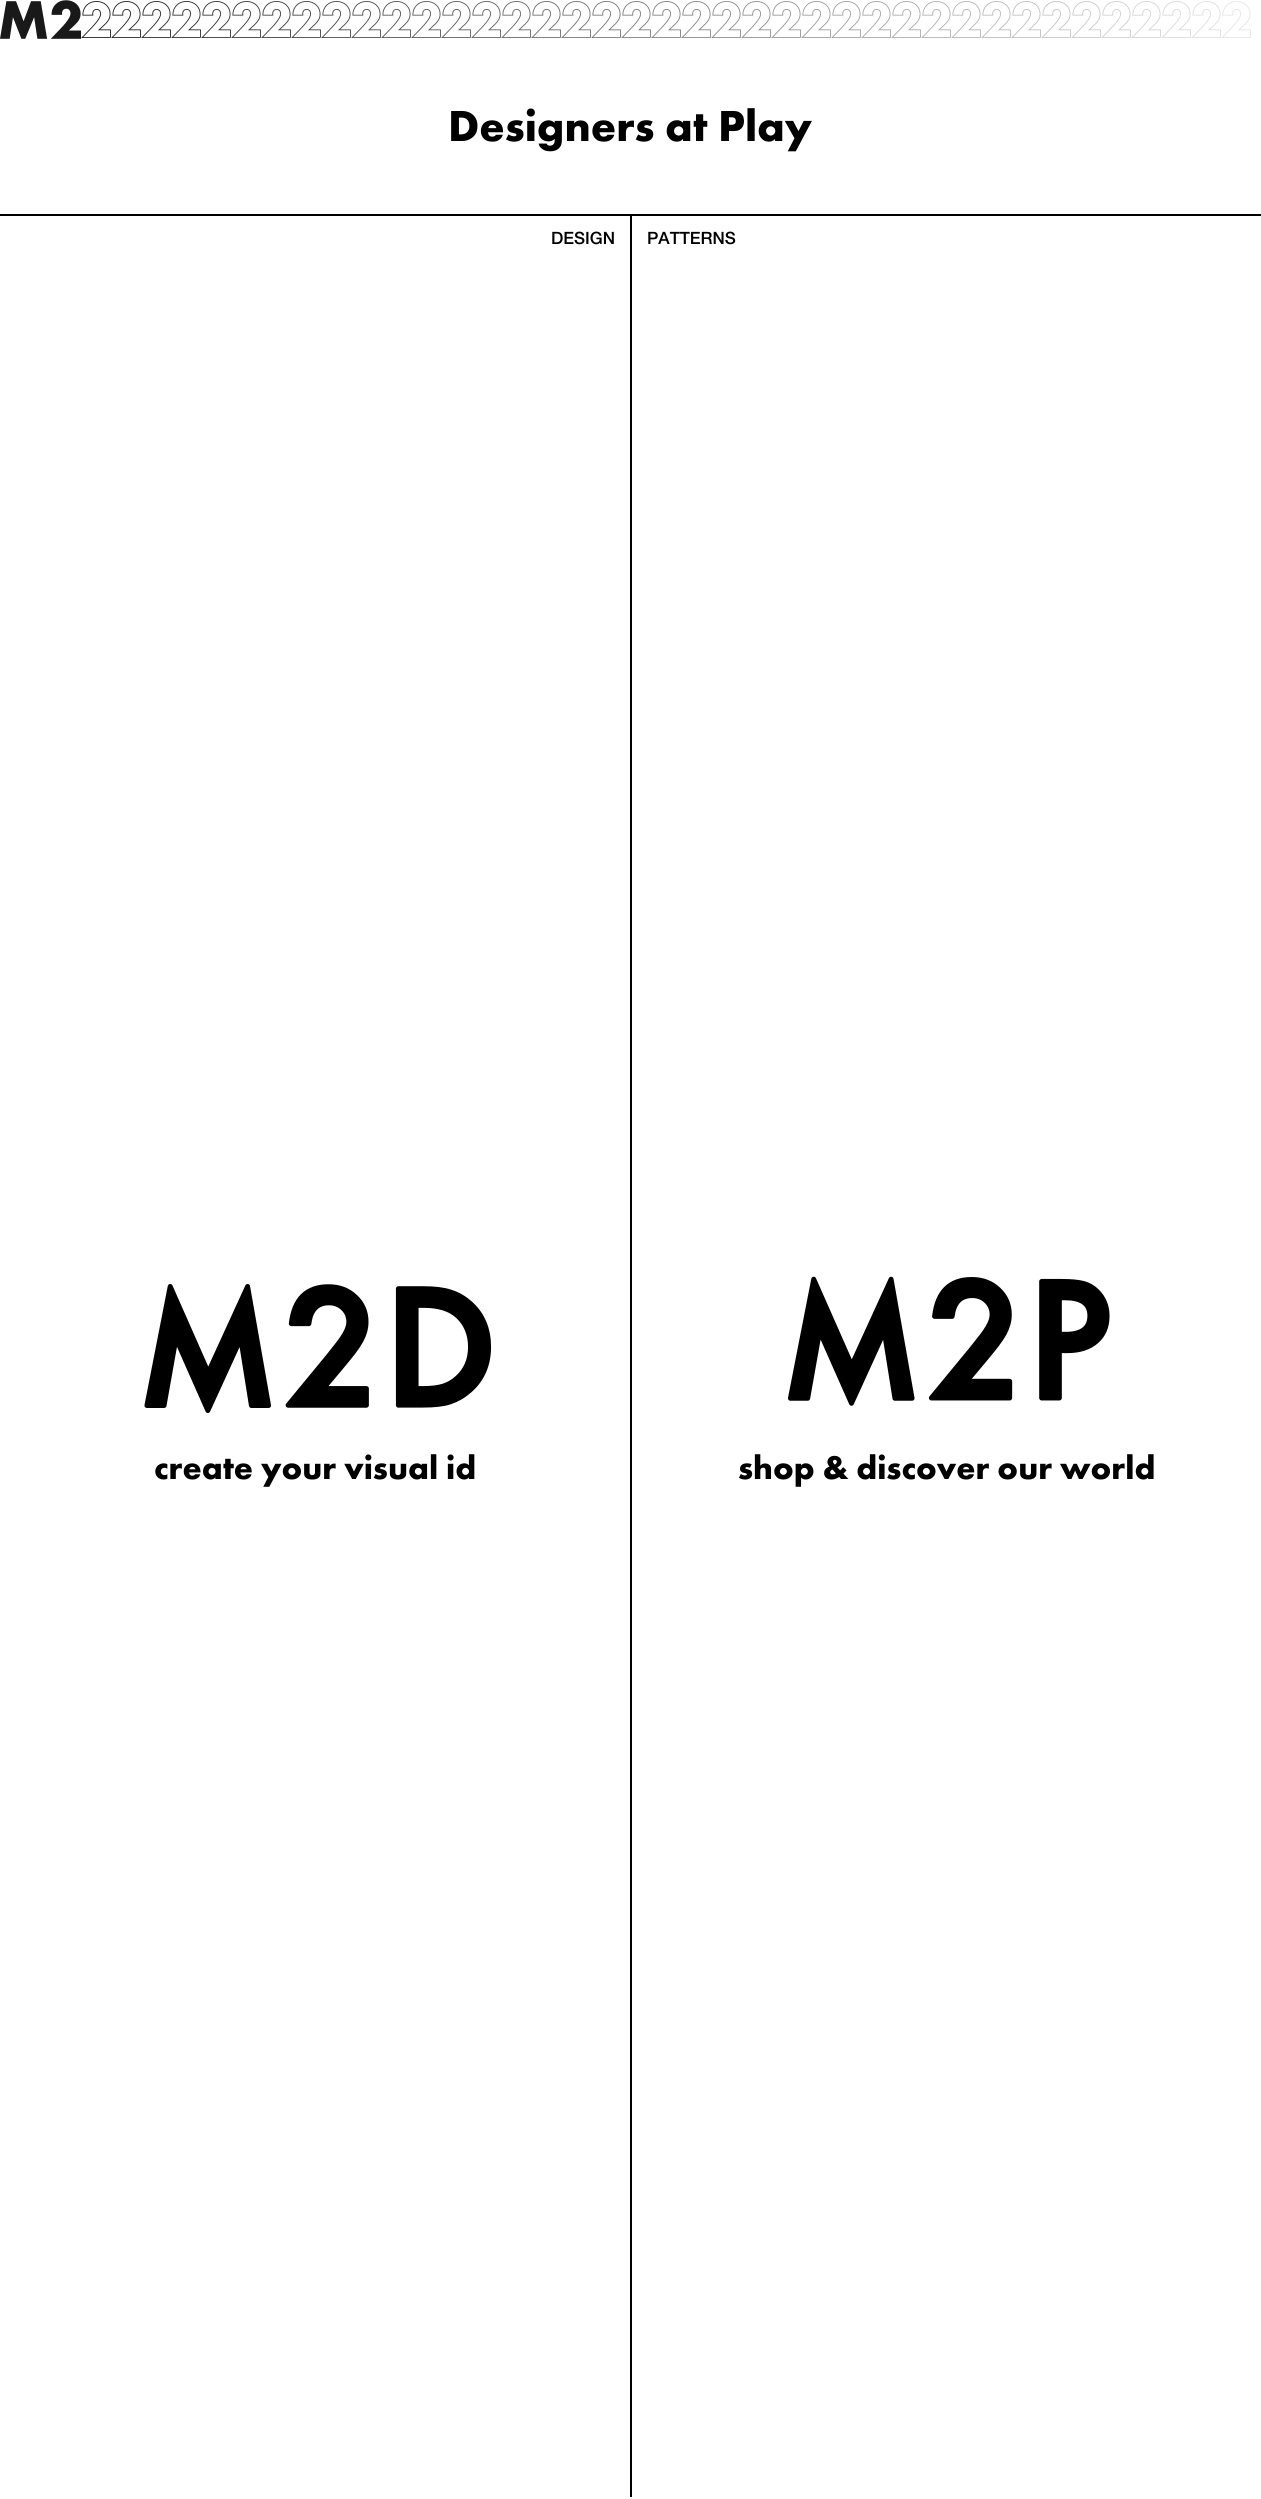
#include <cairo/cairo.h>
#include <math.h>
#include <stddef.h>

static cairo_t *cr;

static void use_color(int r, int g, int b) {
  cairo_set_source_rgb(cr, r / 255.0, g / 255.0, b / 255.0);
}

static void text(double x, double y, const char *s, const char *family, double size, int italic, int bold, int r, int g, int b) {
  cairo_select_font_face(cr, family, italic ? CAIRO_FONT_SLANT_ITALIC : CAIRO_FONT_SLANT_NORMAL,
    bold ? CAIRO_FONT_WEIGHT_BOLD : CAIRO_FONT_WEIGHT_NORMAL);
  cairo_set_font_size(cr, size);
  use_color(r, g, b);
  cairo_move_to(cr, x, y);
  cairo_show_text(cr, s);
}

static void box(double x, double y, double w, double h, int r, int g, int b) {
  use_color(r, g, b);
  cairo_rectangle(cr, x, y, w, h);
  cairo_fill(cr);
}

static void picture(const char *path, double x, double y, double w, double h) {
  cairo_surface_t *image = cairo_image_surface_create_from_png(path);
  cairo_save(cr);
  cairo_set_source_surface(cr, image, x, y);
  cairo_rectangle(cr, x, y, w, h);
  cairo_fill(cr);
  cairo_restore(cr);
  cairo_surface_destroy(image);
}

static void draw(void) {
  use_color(255, 255, 255);
  cairo_paint(cr);
  picture("img_01.png", 0, 0, 81, 39);
  picture("img_02.png", 81, 1, 30, 37);
  picture("img_03.png", 111, 1, 30, 37);
  picture("img_04.png", 141, 1, 30, 37);
  picture("img_05.png", 171, 1, 30, 37);
  picture("img_06.png", 201, 1, 30, 37);
  picture("img_07.png", 231, 1, 30, 37);
  picture("img_08.png", 261, 1, 30, 37);
  picture("img_09.png", 291, 1, 30, 37);
  picture("img_10.png", 321, 1, 30, 37);
  picture("img_11.png", 351, 1, 30, 37);
  picture("img_12.png", 381, 1, 30, 37);
  picture("img_13.png", 411, 1, 30, 37);
  picture("img_14.png", 441, 1, 30, 37);
  picture("img_15.png", 471, 1, 30, 37);
  picture("img_16.png", 501, 1, 30, 37);
  picture("img_17.png", 531, 1, 30, 37);
  picture("img_18.png", 561, 1, 30, 37);
  picture("img_19.png", 591, 1, 30, 37);
  picture("img_20.png", 621, 1, 30, 37);
  picture("img_21.png", 651, 1, 30, 37);
  picture("img_22.png", 681, 1, 30, 37);
  picture("img_23.png", 711, 1, 30, 37);
  picture("img_24.png", 741, 1, 30, 37);
  picture("img_25.png", 771, 1, 30, 37);
  picture("img_26.png", 801, 1, 30, 37);
  picture("img_27.png", 831, 1, 30, 37);
  picture("img_28.png", 861, 1, 30, 37);
  picture("img_29.png", 891, 1, 30, 37);
  picture("img_30.png", 921, 1, 30, 37);
  picture("img_31.png", 951, 1, 30, 37);
  picture("img_32.png", 981, 1, 30, 37);
  picture("img_33.png", 1011, 1, 30, 37);
  picture("img_34.png", 1041, 1, 30, 37);
  picture("img_35.png", 1071, 1, 30, 37);
  picture("img_36.png", 1101, 1, 30, 37);
  picture("img_37.png", 1131, 1, 30, 37);
  picture("img_38.png", 1161, 1, 30, 37);
  picture("img_39.png", 1191, 1, 30, 37);
  picture("img_40.png", 1221, 1, 30, 37);
  box(0, 214, 1261, 2, 0, 0, 0);
  box(630, 216, 2, 2281, 0, 0, 0);
  picture("img_41.png", 144, 1284, 348, 129);
  picture("img_42.png", 788, 1276, 322, 130);
  text(448, 141, "Designers at Play", "Futura PT", 45, 0, 1, 0, 0, 0);
  text(551, 244, "DESIGN", "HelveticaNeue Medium", 17, 0, 0, 0, 0, 0);
  text(154, 1479, "create your visual id", "Futura PT", 34, 0, 1, 0, 0, 0);
  text(647, 244, "PATTERNS", "HelveticaNeue Medium", 17, 0, 0, 0, 0, 0);
  text(738, 1479, "shop & discover our world", "Futura PT", 34, 0, 1, 0, 0, 0);
}

int main(void) {
  cairo_surface_t *surface = cairo_image_surface_create(CAIRO_FORMAT_RGB24, 1261, 2499);
  cr = cairo_create(surface);
  cairo_font_options_t *options = cairo_font_options_create();
  cairo_font_options_set_hint_metrics(options, CAIRO_HINT_METRICS_OFF);
  cairo_font_options_set_hint_style(options, CAIRO_HINT_STYLE_NONE);
  cairo_set_font_options(cr, options);
  cairo_set_miter_limit(cr, 4);
  draw();
  cairo_surface_write_to_png(surface, "out.png");
  cairo_font_options_destroy(options);
  cairo_destroy(cr);
  cairo_surface_destroy(surface);
  return 0;
}
